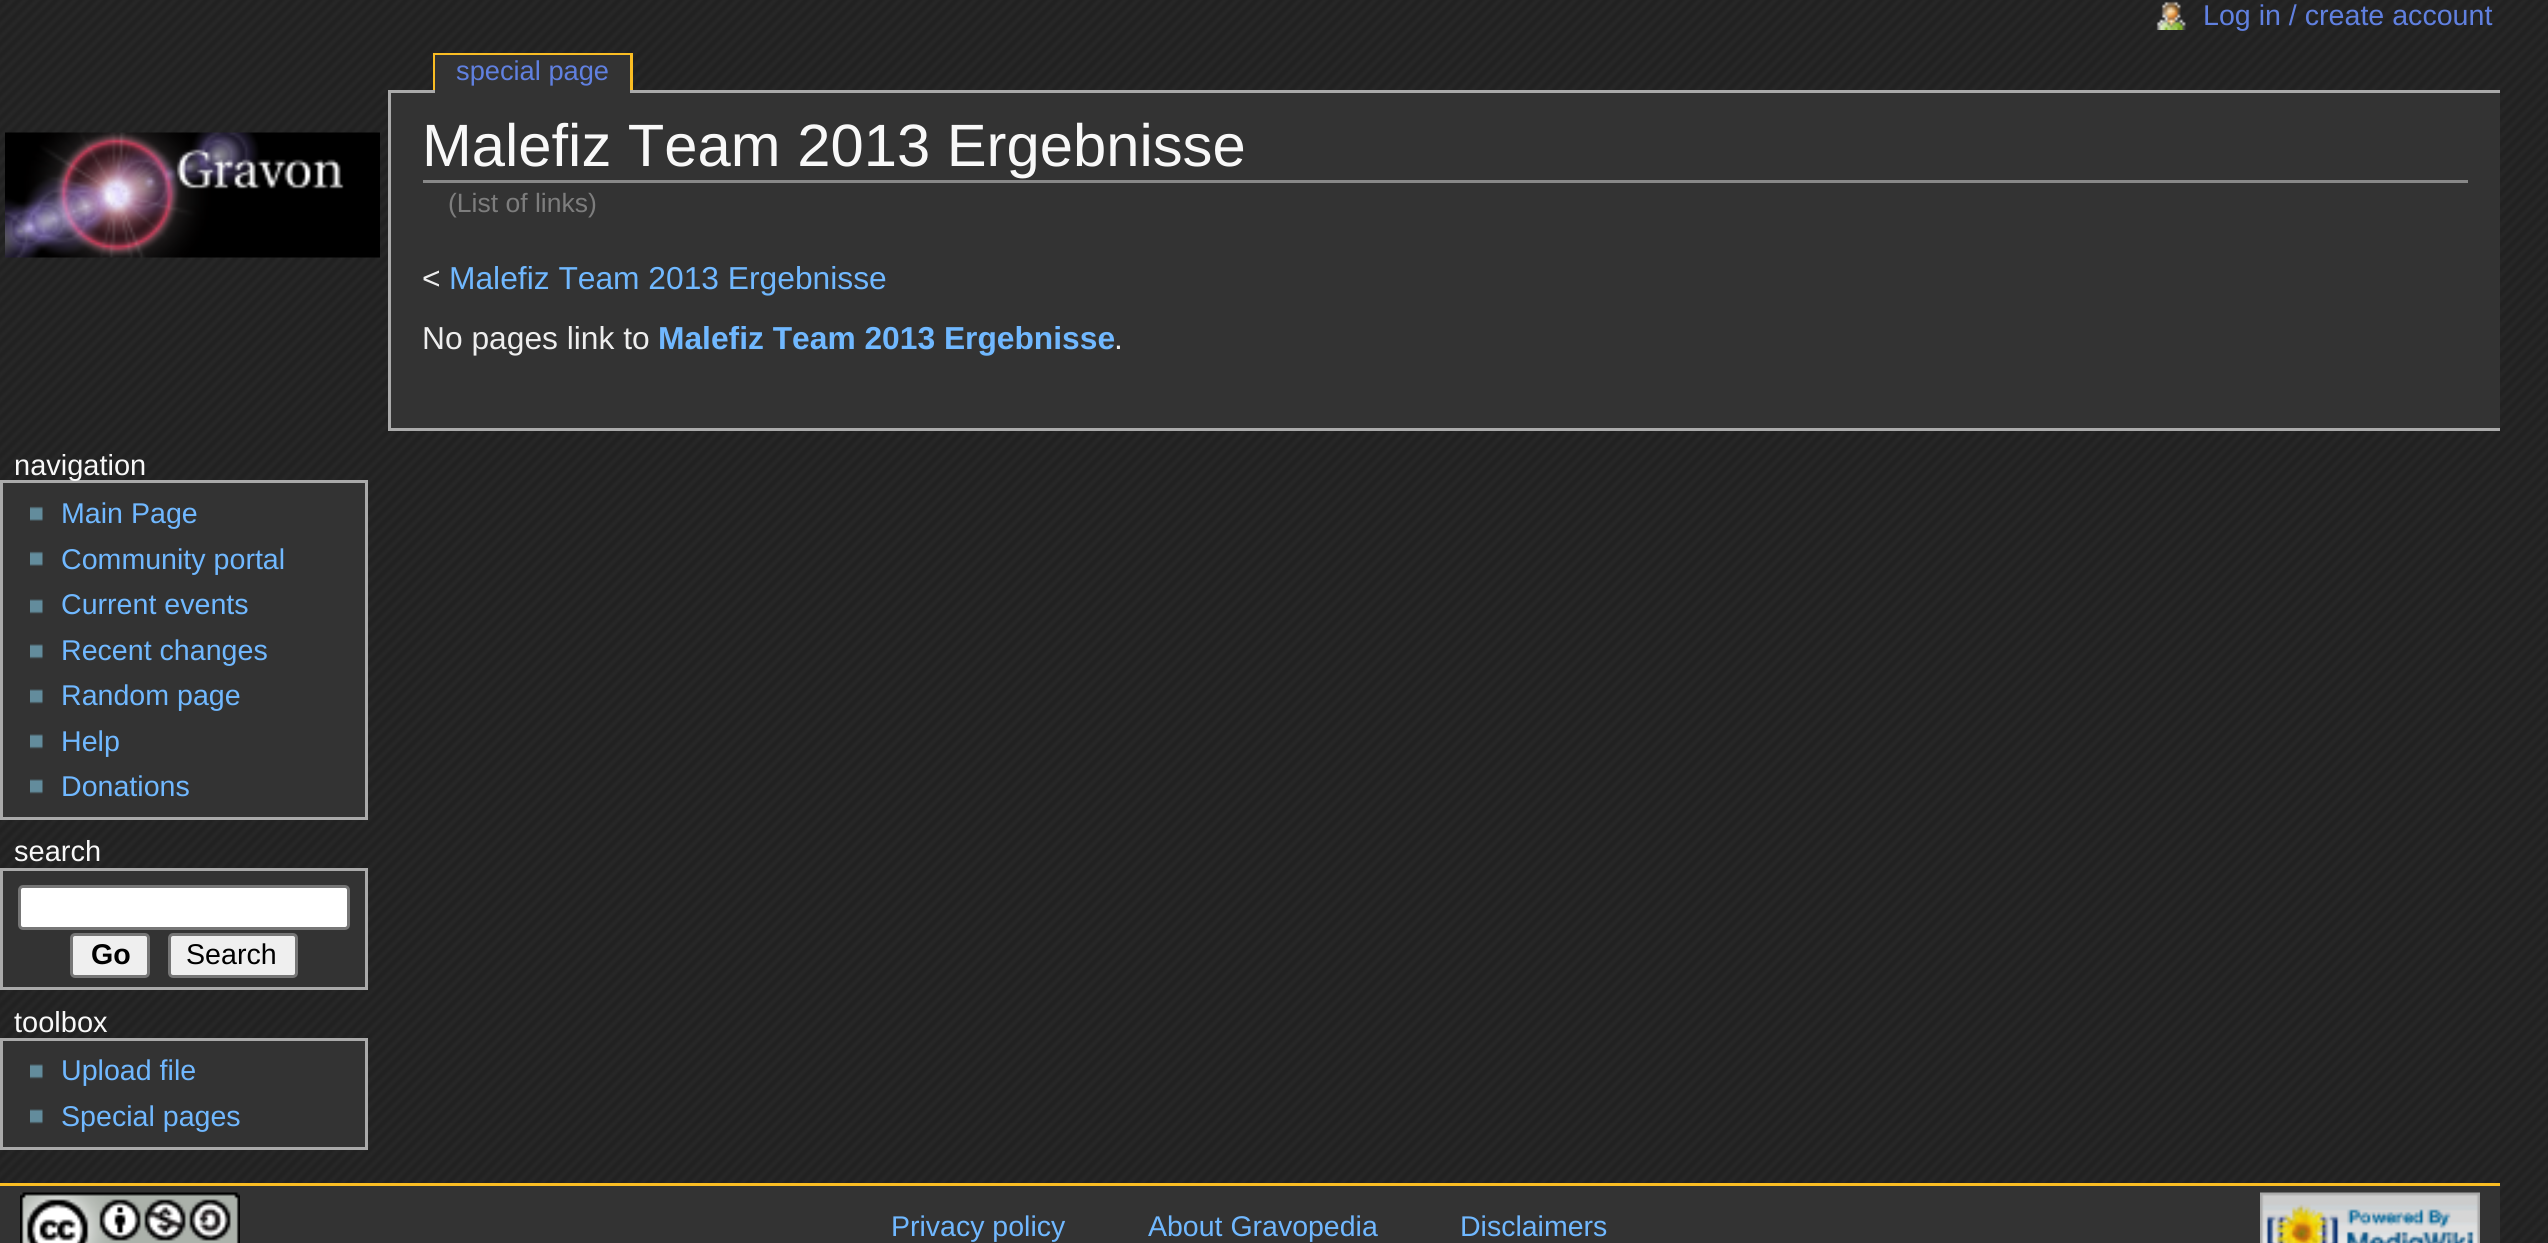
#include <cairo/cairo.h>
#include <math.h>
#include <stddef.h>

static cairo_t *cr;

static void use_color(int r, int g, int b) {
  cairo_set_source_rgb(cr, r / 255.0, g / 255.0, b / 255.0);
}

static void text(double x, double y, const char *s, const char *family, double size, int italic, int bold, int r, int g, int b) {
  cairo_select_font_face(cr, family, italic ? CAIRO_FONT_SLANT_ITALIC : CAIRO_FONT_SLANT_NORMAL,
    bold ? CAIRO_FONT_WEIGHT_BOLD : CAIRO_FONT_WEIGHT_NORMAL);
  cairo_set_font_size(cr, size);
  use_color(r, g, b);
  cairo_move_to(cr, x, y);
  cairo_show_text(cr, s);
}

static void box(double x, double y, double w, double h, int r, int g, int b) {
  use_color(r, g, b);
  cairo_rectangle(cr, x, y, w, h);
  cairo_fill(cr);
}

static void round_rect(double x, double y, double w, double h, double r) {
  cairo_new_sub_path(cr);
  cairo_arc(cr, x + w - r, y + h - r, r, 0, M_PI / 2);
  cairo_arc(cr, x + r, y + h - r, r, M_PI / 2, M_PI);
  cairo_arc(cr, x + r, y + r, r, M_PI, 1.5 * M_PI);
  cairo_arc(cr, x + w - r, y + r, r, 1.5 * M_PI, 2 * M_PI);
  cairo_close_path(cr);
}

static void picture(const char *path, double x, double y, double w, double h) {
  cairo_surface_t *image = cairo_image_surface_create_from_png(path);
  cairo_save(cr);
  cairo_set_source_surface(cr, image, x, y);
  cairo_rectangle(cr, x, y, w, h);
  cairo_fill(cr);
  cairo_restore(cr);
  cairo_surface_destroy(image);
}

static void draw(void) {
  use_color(255, 255, 255);
  cairo_paint(cr);
  picture("img_01.png", 0, 0, 2548, 1243);
  picture("img_02.png", 2156, 1, 30, 29);
  box(433, 53, 200, 2, 250, 189, 35);
  box(630, 53, 3, 37, 250, 189, 35);
  box(433, 53, 3, 37, 250, 189, 35);
  box(388, 90, 2112, 3, 170, 170, 170);
  box(435, 55, 195, 38, 51, 51, 51);
  picture("img_03.png", 5, 132, 375, 126);
  cairo_rectangle(cr, 1.5, 481.5, 365, 337);
  cairo_fill_preserve(cr);
  use_color(170, 170, 170);
  cairo_set_line_width(cr, 3);
  cairo_stroke(cr);
  picture("img_04.png", 30, 506, 13, 15);
  picture("img_04.png", 30, 551, 13, 15);
  picture("img_05.png", 30, 599, 13, 15);
  picture("img_06.png", 30, 644, 13, 15);
  picture("img_06.png", 30, 689, 13, 15);
  picture("img_06.png", 30, 734, 13, 15);
  picture("img_06.png", 30, 779, 13, 15);
  use_color(51, 51, 51);
  cairo_rectangle(cr, 1.5, 869.5, 365, 119);
  cairo_fill_preserve(cr);
  use_color(170, 170, 170);
  cairo_stroke(cr);
  use_color(255, 255, 255);
  round_rect(19.5, 886.5, 329, 42, 3.5);
  cairo_fill_preserve(cr);
  use_color(118, 118, 118);
  cairo_stroke(cr);
  use_color(239, 239, 239);
  round_rect(71.5, 934.5, 77, 42, 3.5);
  cairo_fill_preserve(cr);
  use_color(118, 118, 118);
  cairo_stroke(cr);
  use_color(239, 239, 239);
  round_rect(169.5, 934.5, 127, 42, 3.5);
  cairo_fill_preserve(cr);
  use_color(118, 118, 118);
  cairo_stroke(cr);
  use_color(51, 51, 51);
  cairo_rectangle(cr, 1.5, 1039.5, 365, 109);
  cairo_fill_preserve(cr);
  use_color(170, 170, 170);
  cairo_stroke(cr);
  picture("img_06.png", 30, 1064, 13, 15);
  picture("img_06.png", 30, 1109, 13, 15);
  box(391, 93, 2109, 335, 51, 51, 51);
  box(388, 428, 2112, 3, 170, 170, 170);
  box(388, 90, 3, 340, 170, 170, 170);
  box(423, 180, 2045, 3, 136, 136, 136);
  box(0, 1186, 2500, 57, 51, 51, 51);
  box(0, 1183, 2500, 3, 250, 189, 35);
  picture("img_07.png", 20, 1192, 220, 51);
  picture("img_08.png", 2260, 1192, 220, 51);
  text(2203, 25, "Log in / create account", "Liberation Sans", 28.6, 0, 0, 96, 128, 224);
  text(456, 80, "special page", "Liberation Sans", 27.25, 0, 0, 96, 128, 224);
  text(14, 475, "navigation", "Liberation Sans", 29, 0, 0, 248, 248, 248);
  text(61, 523, "Main Page", "Liberation Sans", 28.6, 0, 0, 112, 184, 255);
  text(61, 569, "Community portal", "Liberation Sans", 28.6, 0, 0, 112, 184, 255);
  text(61, 614, "Current events", "Liberation Sans", 28.6, 0, 0, 112, 184, 255);
  text(61, 660, "Recent changes", "Liberation Sans", 28.6, 0, 0, 112, 184, 255);
  text(61, 705, "Random page", "Liberation Sans", 28.6, 0, 0, 112, 184, 255);
  text(61, 751, "Help", "Liberation Sans", 28.6, 0, 0, 112, 184, 255);
  text(61, 796, "Donations", "Liberation Sans", 28.6, 0, 0, 112, 184, 255);
  text(14, 861, "search", "Liberation Sans", 29, 0, 0, 248, 248, 248);
  text(91, 964, "Go", "Liberation Sans", 28.6, 0, 1, 0, 0, 0);
  text(186, 964, "Search", "Liberation Sans", 28.6, 0, 0, 0, 0, 0);
  text(14, 1032, "toolbox", "Liberation Sans", 29, 0, 0, 248, 248, 248);
  text(61, 1080, "Upload file", "Liberation Sans", 28.6, 0, 0, 112, 184, 255);
  text(61, 1126, "Special pages", "Liberation Sans", 28.6, 0, 0, 112, 184, 255);
  text(422, 166, "Malefiz Team 2013 Ergebnisse", "Liberation Sans", 59.75, 0, 0, 248, 248, 248);
  text(448, 212, "(List of links)", "Liberation Sans", 26.5, 0, 0, 125, 125, 125);
  text(422, 289, "<", "Liberation Sans", 31.75, 0, 0, 238, 238, 238);
  text(449, 289, "Malefiz Team 2013 Ergebnisse", "Liberation Sans", 31.75, 0, 0, 112, 184, 255);
  text(422, 349, "No pages link to", "Liberation Sans", 31.75, 0, 0, 238, 238, 238);
  text(658, 349, "Malefiz Team 2013 Ergebnisse", "Liberation Sans", 31.75, 0, 1, 112, 184, 255);
  text(1114, 349, ".", "Liberation Sans", 31.75, 0, 0, 238, 238, 238);
  text(891, 1236, "Privacy policy", "Liberation Sans", 28.5, 0, 0, 112, 184, 255);
  text(1148, 1236, "About Gravopedia", "Liberation Sans", 28.5, 0, 0, 112, 184, 255);
  text(1460, 1236, "Disclaimers", "Liberation Sans", 28.5, 0, 0, 112, 184, 255);
}

int main(void) {
  cairo_surface_t *surface = cairo_image_surface_create(CAIRO_FORMAT_RGB24, 2548, 1243);
  cr = cairo_create(surface);
  cairo_font_options_t *options = cairo_font_options_create();
  cairo_font_options_set_hint_metrics(options, CAIRO_HINT_METRICS_OFF);
  cairo_font_options_set_hint_style(options, CAIRO_HINT_STYLE_NONE);
  cairo_set_font_options(cr, options);
  cairo_set_miter_limit(cr, 4);
  draw();
  cairo_surface_write_to_png(surface, "out.png");
  cairo_font_options_destroy(options);
  cairo_destroy(cr);
  cairo_surface_destroy(surface);
  return 0;
}
